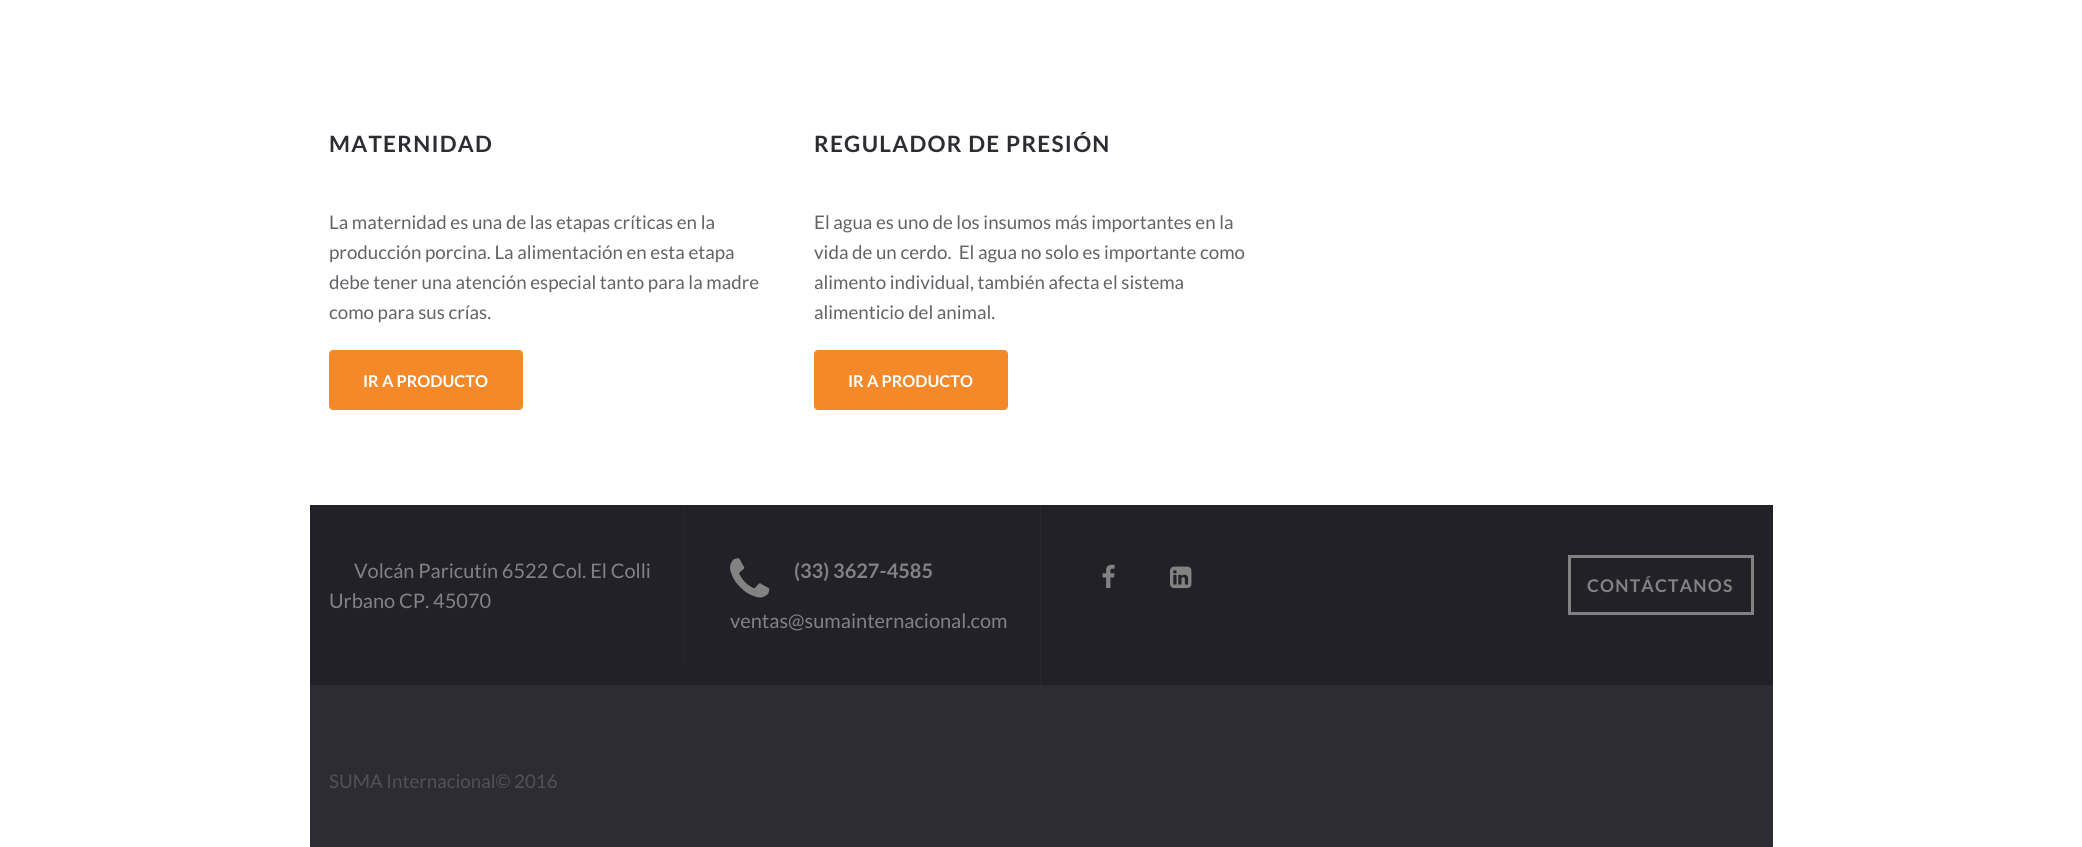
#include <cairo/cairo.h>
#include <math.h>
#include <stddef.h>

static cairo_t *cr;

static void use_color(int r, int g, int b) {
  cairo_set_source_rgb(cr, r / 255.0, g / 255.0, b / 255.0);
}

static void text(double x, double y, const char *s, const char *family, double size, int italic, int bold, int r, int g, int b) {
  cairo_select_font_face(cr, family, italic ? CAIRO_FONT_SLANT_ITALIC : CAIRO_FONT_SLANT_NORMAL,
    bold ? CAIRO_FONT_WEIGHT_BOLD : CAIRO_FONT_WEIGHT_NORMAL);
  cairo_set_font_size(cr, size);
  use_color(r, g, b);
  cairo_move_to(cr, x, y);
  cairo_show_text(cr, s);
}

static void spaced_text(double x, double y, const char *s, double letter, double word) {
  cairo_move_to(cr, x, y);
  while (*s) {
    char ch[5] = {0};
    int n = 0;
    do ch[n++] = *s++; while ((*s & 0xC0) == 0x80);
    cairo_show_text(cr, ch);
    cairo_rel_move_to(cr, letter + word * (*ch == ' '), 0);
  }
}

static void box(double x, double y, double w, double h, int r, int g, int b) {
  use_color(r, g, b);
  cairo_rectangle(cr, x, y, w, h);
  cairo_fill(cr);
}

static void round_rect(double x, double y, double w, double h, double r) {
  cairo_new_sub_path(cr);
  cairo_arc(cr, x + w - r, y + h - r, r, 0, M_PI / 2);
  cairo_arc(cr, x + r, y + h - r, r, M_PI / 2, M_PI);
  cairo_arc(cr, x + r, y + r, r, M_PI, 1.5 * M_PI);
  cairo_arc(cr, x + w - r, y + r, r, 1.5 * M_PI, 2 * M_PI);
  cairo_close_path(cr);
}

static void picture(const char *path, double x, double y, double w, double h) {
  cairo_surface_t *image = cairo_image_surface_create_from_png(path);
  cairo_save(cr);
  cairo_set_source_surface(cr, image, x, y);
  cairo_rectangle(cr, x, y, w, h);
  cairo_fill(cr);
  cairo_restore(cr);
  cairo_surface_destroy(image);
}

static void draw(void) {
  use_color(255, 255, 255);
  cairo_paint(cr);
  use_color(243, 137, 41);
  round_rect(329, 350, 194, 60, 4);
  cairo_fill(cr);
  round_rect(814, 350, 194, 60, 4);
  cairo_fill(cr);
  box(310, 685, 1463, 162, 45, 44, 50);
  box(310, 505, 1463, 180, 34, 33, 39);
  box(684, 505, 1, 160, 40, 39, 45);
  box(1040, 505, 1, 180, 40, 39, 45);
  picture("img_01.png", 730, 558, 40, 40);
  picture("img_02.png", 1102, 564, 13, 25);
  picture("img_03.png", 1170, 566, 22, 23);
  cairo_rectangle(cr, 1569.5, 556.5, 183, 57);
  use_color(130, 130, 130);
  cairo_set_line_width(cr, 3);
  cairo_stroke(cr);
  cairo_select_font_face(cr, "Lato", CAIRO_FONT_SLANT_NORMAL, CAIRO_FONT_WEIGHT_BOLD);
  cairo_set_font_size(cr, 22.5);
  use_color(45, 44, 50);
  spaced_text(329, 152, "MATERNIDAD", 1.25, 0);
  text(329, 229, "La maternidad es una de las etapas críticas en la", "Lato", 18.75, 0, 0, 99, 98, 102);
  text(329, 259, "producción porcina. La alimentación en esta etapa", "Lato", 18.75, 0, 0, 99, 98, 102);
  text(329, 289, "debe tener una atención especial tanto para la madre", "Lato", 18.75, 0, 0, 99, 98, 102);
  text(329, 319, "como para sus crías.", "Lato", 18.75, 0, 0, 99, 98, 102);
  text(363, 387, "IR A PRODUCTO", "Lato", 16.25, 0, 1, 255, 255, 255);
  cairo_set_font_size(cr, 22.5);
  use_color(45, 44, 50);
  spaced_text(814, 152, "REGULADOR DE PRESIÓN", 1.25, 0);
  text(814, 229, "El agua es uno de los insumos más importantes en la", "Lato", 18.75, 0, 0, 99, 98, 102);
  text(814, 259, "vida de un cerdo.  El agua no solo es importante como", "Lato", 18.75, 0, 0, 99, 98, 102);
  text(814, 289, "alimento individual, también afecta el sistema", "Lato", 18.75, 0, 0, 99, 98, 102);
  text(814, 319, "alimenticio del animal.", "Lato", 18.75, 0, 0, 99, 98, 102);
  text(848, 387, "IR A PRODUCTO", "Lato", 16.25, 0, 1, 255, 255, 255);
  text(354, 578, "Volcán Paricutín 6522 Col. El Colli", "Lato", 20, 0, 0, 130, 130, 130);
  text(329, 608, "Urbano CP. 45070", "Lato", 20, 0, 0, 130, 130, 130);
  text(794, 578, "(33) 3627-4585", "Lato", 20, 0, 1, 130, 130, 130);
  text(730, 628, "ventas@sumainternacional.com", "Lato", 20, 0, 0, 130, 130, 130);
  cairo_select_font_face(cr, "Lato", CAIRO_FONT_SLANT_NORMAL, CAIRO_FONT_WEIGHT_BOLD);
  cairo_set_font_size(cr, 17.5);
  spaced_text(1587, 592, "CONTÁCTANOS", 1.25, 0);
  text(329, 788, "SUMA Internacional© 2016", "Lato", 18.75, 0, 0, 81, 80, 90);
}

int main(void) {
  cairo_surface_t *surface = cairo_image_surface_create(CAIRO_FORMAT_RGB24, 2082, 847);
  cr = cairo_create(surface);
  cairo_font_options_t *options = cairo_font_options_create();
  cairo_font_options_set_hint_metrics(options, CAIRO_HINT_METRICS_OFF);
  cairo_font_options_set_hint_style(options, CAIRO_HINT_STYLE_NONE);
  cairo_set_font_options(cr, options);
  cairo_set_miter_limit(cr, 4);
  draw();
  cairo_surface_write_to_png(surface, "out.png");
  cairo_font_options_destroy(options);
  cairo_destroy(cr);
  cairo_surface_destroy(surface);
  return 0;
}
